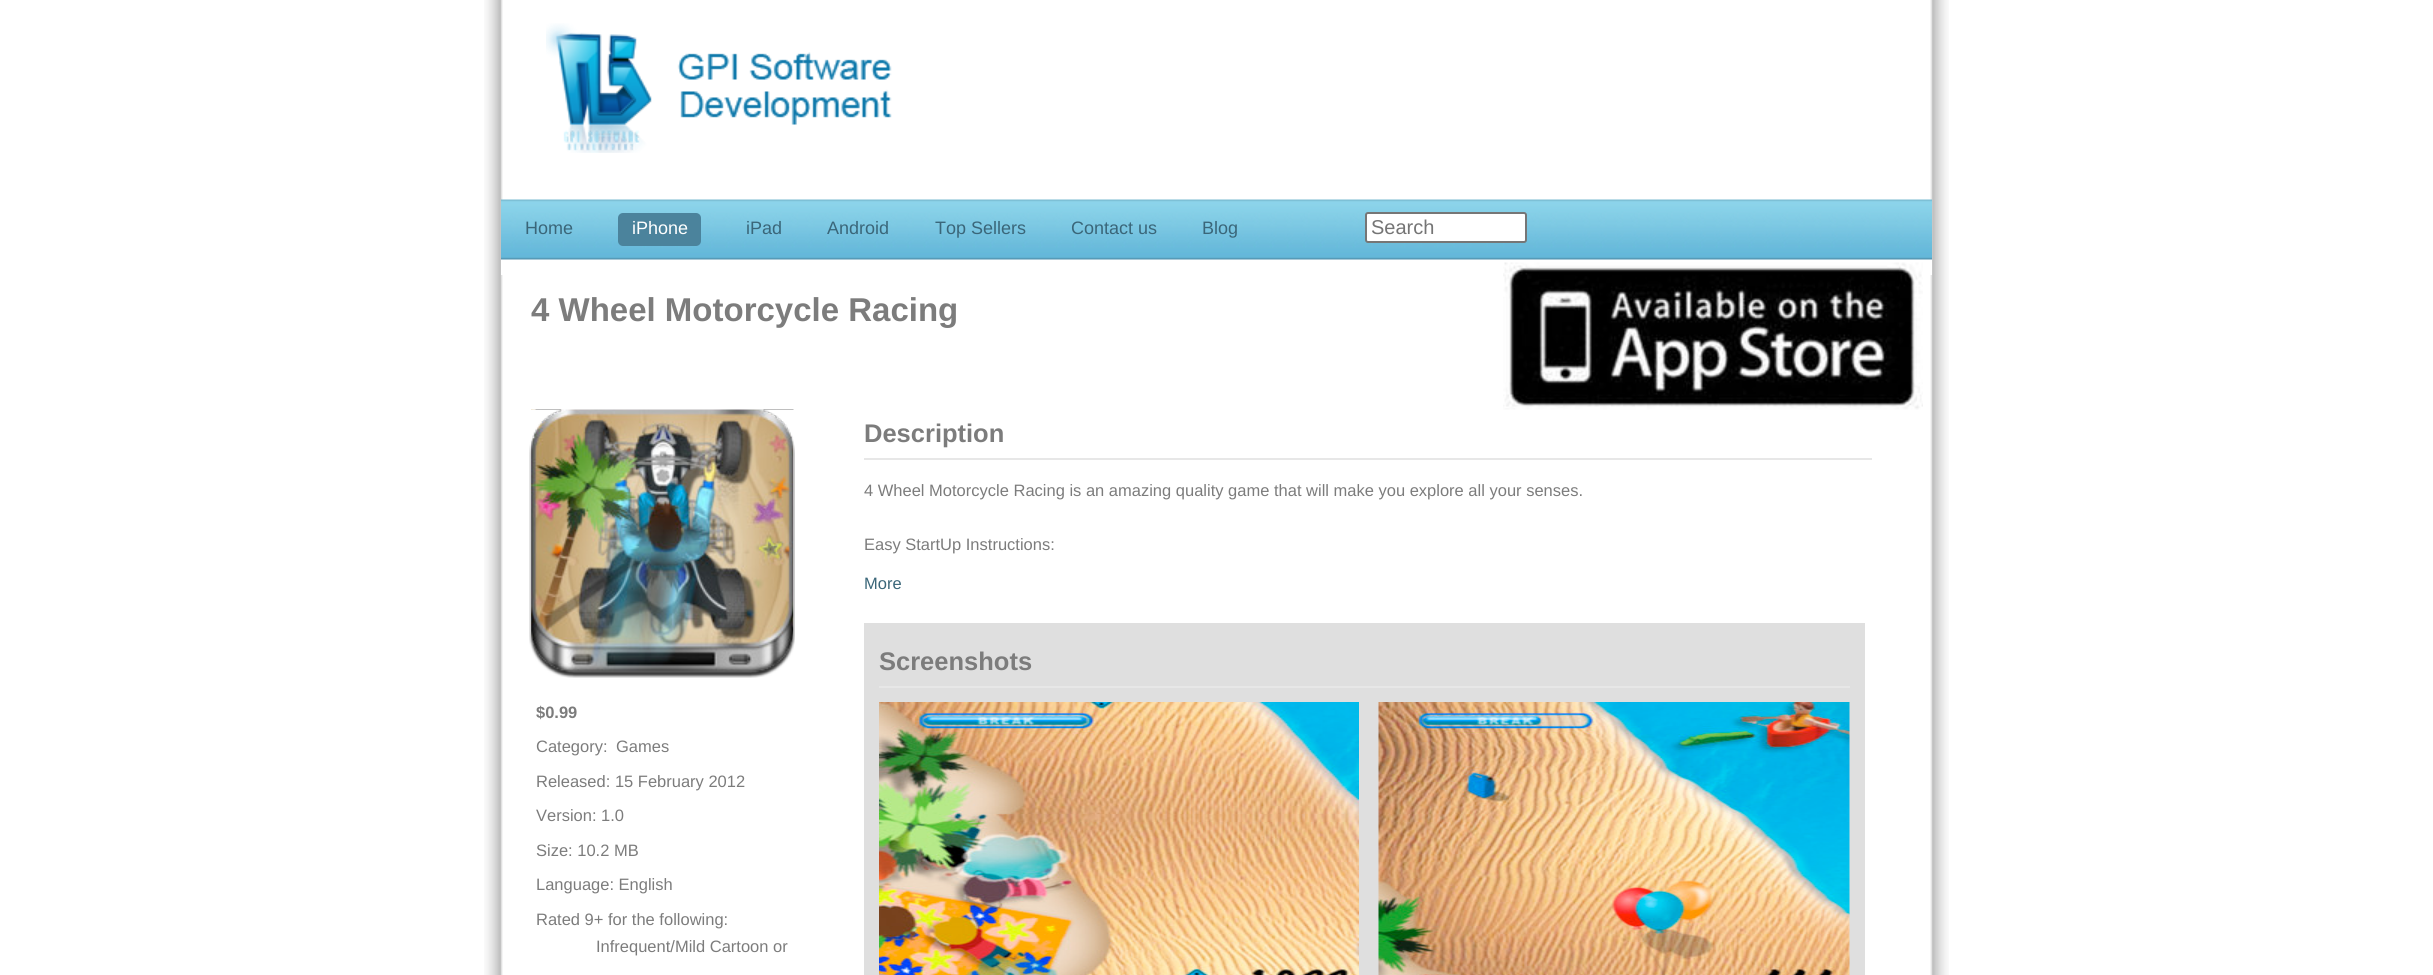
#include <cairo/cairo.h>
#include <math.h>
#include <stddef.h>

static cairo_t *cr;

static void use_color(int r, int g, int b) {
  cairo_set_source_rgb(cr, r / 255.0, g / 255.0, b / 255.0);
}

static void text(double x, double y, const char *s, const char *family, double size, int italic, int bold, int r, int g, int b) {
  cairo_select_font_face(cr, family, italic ? CAIRO_FONT_SLANT_ITALIC : CAIRO_FONT_SLANT_NORMAL,
    bold ? CAIRO_FONT_WEIGHT_BOLD : CAIRO_FONT_WEIGHT_NORMAL);
  cairo_set_font_size(cr, size);
  use_color(r, g, b);
  cairo_move_to(cr, x, y);
  cairo_show_text(cr, s);
}

static void box(double x, double y, double w, double h, int r, int g, int b) {
  use_color(r, g, b);
  cairo_rectangle(cr, x, y, w, h);
  cairo_fill(cr);
}

static void round_rect(double x, double y, double w, double h, double r) {
  cairo_new_sub_path(cr);
  cairo_arc(cr, x + w - r, y + h - r, r, 0, M_PI / 2);
  cairo_arc(cr, x + r, y + h - r, r, M_PI / 2, M_PI);
  cairo_arc(cr, x + r, y + r, r, M_PI, 1.5 * M_PI);
  cairo_arc(cr, x + w - r, y + r, r, 1.5 * M_PI, 2 * M_PI);
  cairo_close_path(cr);
}

static void picture(const char *path, double x, double y, double w, double h) {
  cairo_surface_t *image = cairo_image_surface_create_from_png(path);
  cairo_save(cr);
  cairo_set_source_surface(cr, image, x, y);
  cairo_rectangle(cr, x, y, w, h);
  cairo_fill(cr);
  cairo_restore(cr);
  cairo_surface_destroy(image);
}

static void draw(void) {
  use_color(255, 255, 255);
  cairo_paint(cr);
  picture("img_01.png", 484, 0, 1465, 975);
  picture("img_02.png", 546, 23, 346, 130);
  box(501, 259, 1431, 16, 255, 255, 255);
  picture("img_03.png", 501, 199, 1431, 61);
  use_color(75, 131, 156);
  round_rect(618, 213, 83, 33, 5);
  cairo_fill(cr);
  use_color(255, 255, 255);
  round_rect(1366, 213, 160, 29, 2);
  cairo_fill_preserve(cr);
  use_color(118, 118, 118);
  cairo_stroke(cr);
  picture("img_04.png", 1503, 262, 420, 148);
  box(864, 458, 1008, 2, 231, 231, 231);
  box(864, 623, 1001, 352, 223, 223, 223);
  box(879, 686, 971, 2, 231, 231, 231);
  picture("img_05.png", 879, 702, 480, 273);
  picture("img_06.png", 1378, 702, 472, 273);
  picture("img_08.png", 531, 409, 263, 263);
  picture("img_07.png", 529, 409, 266, 269);
  text(525, 234, "Home", "Liberation Sans", 18, 0, 0, 58, 102, 121);
  text(632, 234, "iPhone", "Liberation Sans", 18, 0, 0, 255, 255, 255);
  text(746, 234, "iPad", "Liberation Sans", 18, 0, 0, 58, 102, 121);
  text(827, 234, "Android", "Liberation Sans", 18, 0, 0, 58, 102, 121);
  text(935, 234, "Top Sellers", "Liberation Sans", 18, 0, 0, 58, 102, 121);
  text(1071, 234, "Contact us", "Liberation Sans", 18, 0, 0, 58, 102, 121);
  text(1202, 234, "Blog", "Liberation Sans", 18, 0, 0, 58, 102, 121);
  text(1371, 234, "Search", "Liberation Sans", 20, 0, 0, 117, 117, 117);
  text(531, 321, "4 Wheel Motorcycle Racing", "Liberation Sans", 33, 0, 1, 124, 124, 124);
  text(864, 442, "Description", "Liberation Sans", 25.5, 0, 1, 124, 124, 124);
  text(864, 496, "4 Wheel Motorcycle Racing is an amazing quality game that will make you explore all your senses.", "Liberation Sans", 16.5, 0, 0, 124, 124, 124);
  text(864, 550, "Easy StartUp Instructions:", "Liberation Sans", 16.5, 0, 0, 124, 124, 124);
  text(864, 589, "More", "Liberation Sans", 16.5, 0, 0, 58, 102, 121);
  text(879, 670, "Screenshots", "Liberation Sans", 25.5, 0, 1, 124, 124, 124);
  text(536, 718, "$0.99", "Liberation Sans", 16.5, 0, 1, 124, 124, 124);
  text(536, 752, "Category:", "Liberation Sans", 16.5, 0, 0, 124, 124, 124);
  text(616, 752, "Games", "Liberation Sans", 16.5, 0, 0, 124, 124, 124);
  text(536, 787, "Released: 15 February 2012", "Liberation Sans", 16.5, 0, 0, 124, 124, 124);
  text(536, 821, "Version: 1.0", "Liberation Sans", 16.5, 0, 0, 124, 124, 124);
  text(536, 856, "Size: 10.2 MB", "Liberation Sans", 16.5, 0, 0, 124, 124, 124);
  text(536, 890, "Language: English", "Liberation Sans", 16.5, 0, 0, 124, 124, 124);
  text(536, 925, "Rated 9+ for the following:", "Liberation Sans", 16.5, 0, 0, 124, 124, 124);
  text(596, 952, "Infrequent/Mild Cartoon or", "Liberation Sans", 16.5, 0, 0, 124, 124, 124);
}

int main(void) {
  cairo_surface_t *surface = cairo_image_surface_create(CAIRO_FORMAT_RGB24, 2433, 975);
  cr = cairo_create(surface);
  cairo_font_options_t *options = cairo_font_options_create();
  cairo_font_options_set_hint_metrics(options, CAIRO_HINT_METRICS_OFF);
  cairo_font_options_set_hint_style(options, CAIRO_HINT_STYLE_NONE);
  cairo_set_font_options(cr, options);
  cairo_set_miter_limit(cr, 4);
  draw();
  cairo_surface_write_to_png(surface, "out.png");
  cairo_font_options_destroy(options);
  cairo_destroy(cr);
  cairo_surface_destroy(surface);
  return 0;
}
